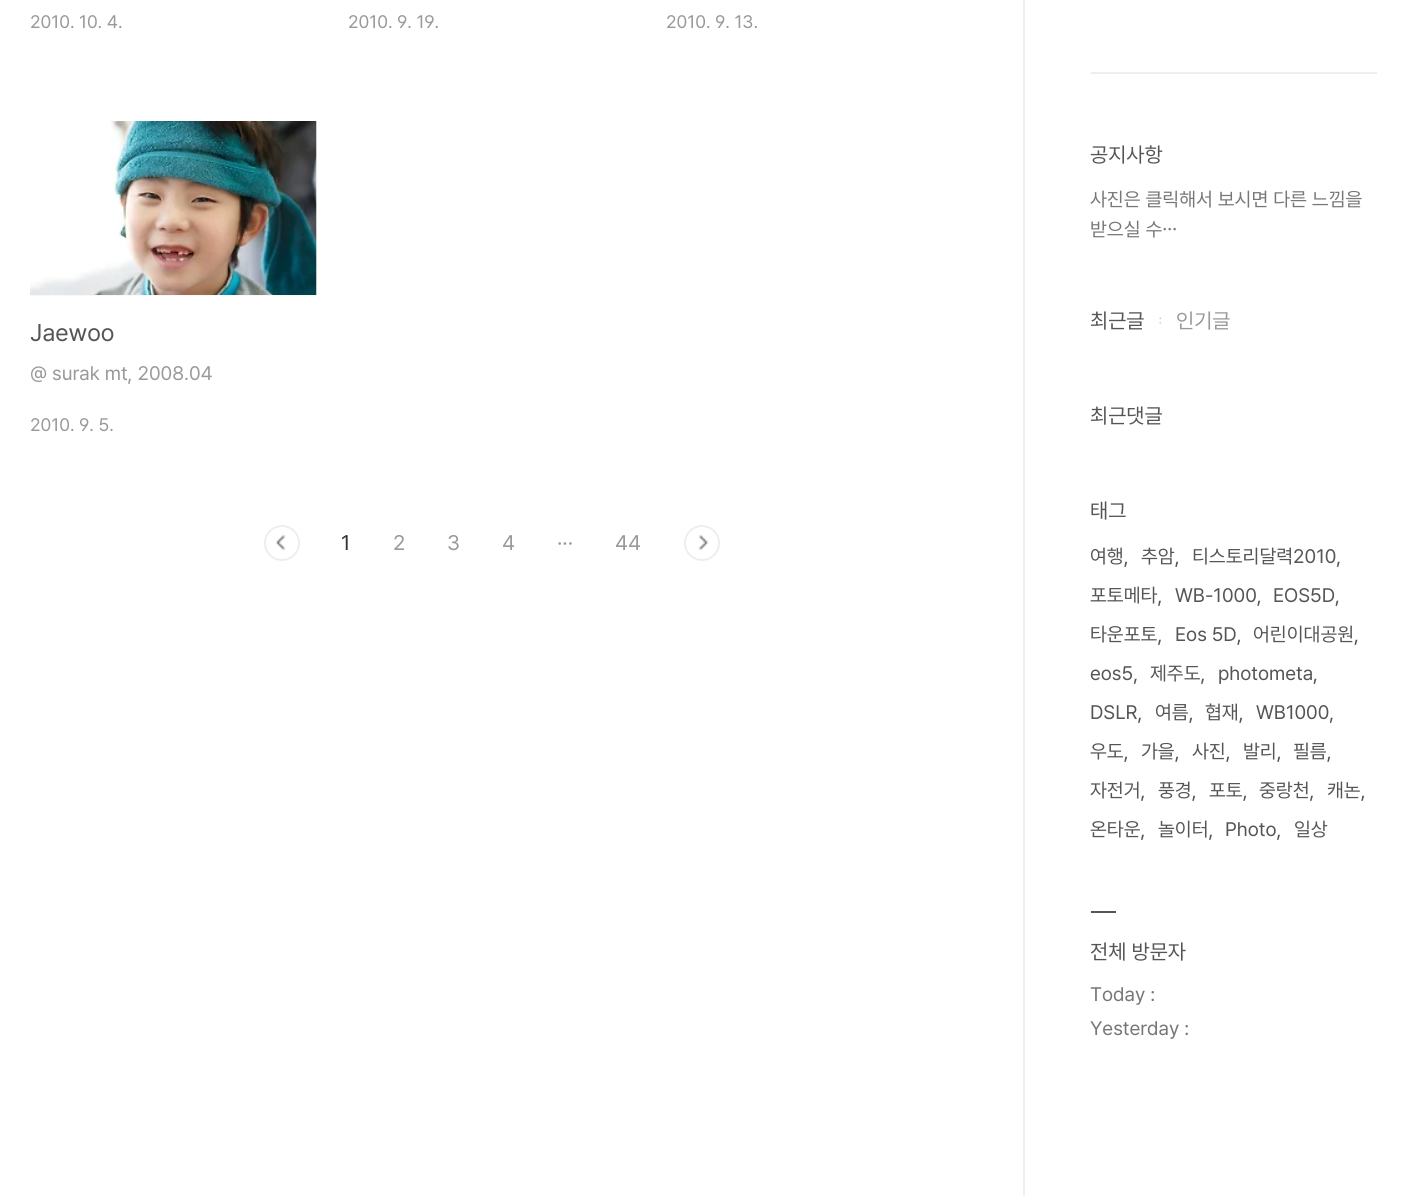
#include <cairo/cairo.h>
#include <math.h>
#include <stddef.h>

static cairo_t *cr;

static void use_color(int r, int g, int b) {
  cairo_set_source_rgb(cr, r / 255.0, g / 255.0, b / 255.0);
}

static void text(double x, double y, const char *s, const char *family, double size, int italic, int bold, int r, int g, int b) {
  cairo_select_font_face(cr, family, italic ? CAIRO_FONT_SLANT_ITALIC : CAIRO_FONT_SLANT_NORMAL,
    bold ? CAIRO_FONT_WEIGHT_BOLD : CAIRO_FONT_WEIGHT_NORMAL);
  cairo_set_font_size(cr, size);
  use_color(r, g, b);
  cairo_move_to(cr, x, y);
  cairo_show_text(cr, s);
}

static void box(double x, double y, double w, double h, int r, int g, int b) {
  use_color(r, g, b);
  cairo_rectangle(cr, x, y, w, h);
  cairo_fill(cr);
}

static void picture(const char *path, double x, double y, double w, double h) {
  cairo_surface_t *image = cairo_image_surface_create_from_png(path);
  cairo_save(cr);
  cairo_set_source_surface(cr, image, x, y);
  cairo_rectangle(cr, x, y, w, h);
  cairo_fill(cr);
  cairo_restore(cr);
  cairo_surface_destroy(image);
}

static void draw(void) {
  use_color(255, 255, 255);
  cairo_paint(cr);
  box(30, 122, 287, 174, 248, 248, 248);
  picture("img_01.png", 30, 121, 287, 174);
  picture("img_02.png", 276, 534, 10, 17);
  cairo_arc(cr, 282, 543, 17, 0, 2 * M_PI);
  use_color(238, 238, 238);
  cairo_stroke(cr);
  picture("img_03.png", 698, 534, 11, 17);
  cairo_arc(cr, 702, 543, 17, 0, 2 * M_PI);
  cairo_stroke(cr);
  box(1023, 0, 2, 1196, 238, 238, 238);
  box(1091, 72, 286, 2, 238, 238, 238);
  picture("img_04.png", 1159, 317, 2, 7);
  box(1091, 911, 25, 2, 85, 85, 85);
  text(30, 28, "2010. 10. 4.", "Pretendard", 18, 0, 0, 153, 153, 153);
  text(348, 28, "2010. 9. 19.", "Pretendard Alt", 18, 0, 0, 153, 153, 153);
  text(666, 28, "2010. 9. 13.", "Pretendard Alt", 18, 0, 0, 153, 153, 153);
  text(30, 341, "Jaewoo", "Pretendard", 24, 0, 0, 85, 85, 85);
  text(30, 380, "@ surak mt, 2008.04", "Pretendard", 19.5, 0, 0, 153, 153, 153);
  text(30, 431, "2010. 9. 5.", "Pretendard Alt", 18, 0, 0, 153, 153, 153);
  text(341, 550, "1", "Pretendard", 21, 0, 0, 51, 51, 51);
  text(393, 550, "2", "Pretendard", 21, 0, 0, 153, 153, 153);
  text(447, 550, "3", "Pretendard", 21, 0, 0, 153, 153, 153);
  text(502, 550, "4", "Pretendard", 21, 0, 0, 153, 153, 153);
  text(557, 550, "···", "Pretendard", 21, 0, 0, 153, 153, 153);
  text(615, 550, "44", "Pretendard", 21, 0, 0, 153, 153, 153);
  text(1090, 162, "공지사항", "Pretendard", 21, 0, 0, 85, 85, 85);
  text(1090, 206, "사진은 클릭해서 보시면 다른 느낌을", "Pretendard", 19.5, 0, 0, 119, 119, 119);
  text(1090, 236, "받으실 수⋯", "Pretendard", 19.5, 0, 0, 119, 119, 119);
  text(1090, 328, "최근글", "Pretendard", 21, 0, 0, 85, 85, 85);
  text(1176, 328, "인기글", "Pretendard", 21, 0, 0, 153, 153, 153);
  text(1090, 423, "최근댓글", "Pretendard", 21, 0, 0, 85, 85, 85);
  text(1090, 518, "태그", "Pretendard", 21, 0, 0, 85, 85, 85);
  text(1090, 563, "여행,", "Pretendard", 19.5, 0, 0, 85, 85, 85);
  text(1141, 563, "추암,", "Pretendard", 19.5, 0, 0, 85, 85, 85);
  text(1192, 563, "티스토리달력2010,", "Pretendard", 19.5, 0, 0, 85, 85, 85);
  text(1090, 602, "포토메타,", "Pretendard", 19.5, 0, 0, 85, 85, 85);
  text(1175, 602, "WB-1000,", "Pretendard", 19.5, 0, 0, 85, 85, 85);
  text(1273, 602, "EOS5D,", "Pretendard", 19.5, 0, 0, 85, 85, 85);
  text(1090, 641, "타운포토,", "Pretendard", 19.5, 0, 0, 85, 85, 85);
  text(1175, 641, "Eos 5D,", "Pretendard", 19.5, 0, 0, 85, 85, 85);
  text(1253, 641, "어린이대공원,", "Pretendard", 19.5, 0, 0, 85, 85, 85);
  text(1090, 680, "eos5,", "Pretendard", 19.5, 0, 0, 85, 85, 85);
  text(1150, 680, "제주도,", "Pretendard", 19.5, 0, 0, 85, 85, 85);
  text(1218, 680, "photometa,", "Pretendard", 19.5, 0, 0, 85, 85, 85);
  text(1090, 719, "DSLR,", "Pretendard", 19.5, 0, 0, 85, 85, 85);
  text(1155, 719, "여름,", "Pretendard", 19.5, 0, 0, 85, 85, 85);
  text(1205, 719, "협재,", "Pretendard", 19.5, 0, 0, 85, 85, 85);
  text(1256, 719, "WB1000,", "Pretendard", 19.5, 0, 0, 85, 85, 85);
  text(1090, 758, "우도,", "Pretendard", 19.5, 0, 0, 85, 85, 85);
  text(1141, 758, "가을,", "Pretendard", 19.5, 0, 0, 85, 85, 85);
  text(1192, 758, "사진,", "Pretendard", 19.5, 0, 0, 85, 85, 85);
  text(1243, 758, "발리,", "Pretendard", 19.5, 0, 0, 85, 85, 85);
  text(1293, 758, "필름,", "Pretendard", 19.5, 0, 0, 85, 85, 85);
  text(1090, 797, "자전거,", "Pretendard", 19.5, 0, 0, 85, 85, 85);
  text(1158, 797, "풍경,", "Pretendard", 19.5, 0, 0, 85, 85, 85);
  text(1209, 797, "포토,", "Pretendard", 19.5, 0, 0, 85, 85, 85);
  text(1259, 797, "중랑천,", "Pretendard", 19.5, 0, 0, 85, 85, 85);
  text(1327, 797, "캐논,", "Pretendard", 19.5, 0, 0, 85, 85, 85);
  text(1090, 836, "온타운,", "Pretendard", 19.5, 0, 0, 85, 85, 85);
  text(1158, 836, "놀이터,", "Pretendard", 19.5, 0, 0, 85, 85, 85);
  text(1225, 836, "Photo,", "Pretendard", 19.5, 0, 0, 85, 85, 85);
  text(1294, 836, "일상", "Pretendard", 19.5, 0, 0, 85, 85, 85);
  text(1090, 959, "전체 방문자", "Pretendard", 21, 0, 0, 85, 85, 85);
  text(1090, 1001, "Today :", "Pretendard", 19.5, 0, 0, 119, 119, 119);
  text(1090, 1035, "Yesterday :", "Pretendard", 19.5, 0, 0, 119, 119, 119);
}

int main(void) {
  cairo_surface_t *surface = cairo_image_surface_create(CAIRO_FORMAT_RGB24, 1406, 1196);
  cr = cairo_create(surface);
  cairo_font_options_t *options = cairo_font_options_create();
  cairo_font_options_set_hint_metrics(options, CAIRO_HINT_METRICS_OFF);
  cairo_font_options_set_hint_style(options, CAIRO_HINT_STYLE_NONE);
  cairo_set_font_options(cr, options);
  cairo_set_miter_limit(cr, 4);
  draw();
  cairo_surface_write_to_png(surface, "out.png");
  cairo_font_options_destroy(options);
  cairo_destroy(cr);
  cairo_surface_destroy(surface);
  return 0;
}
